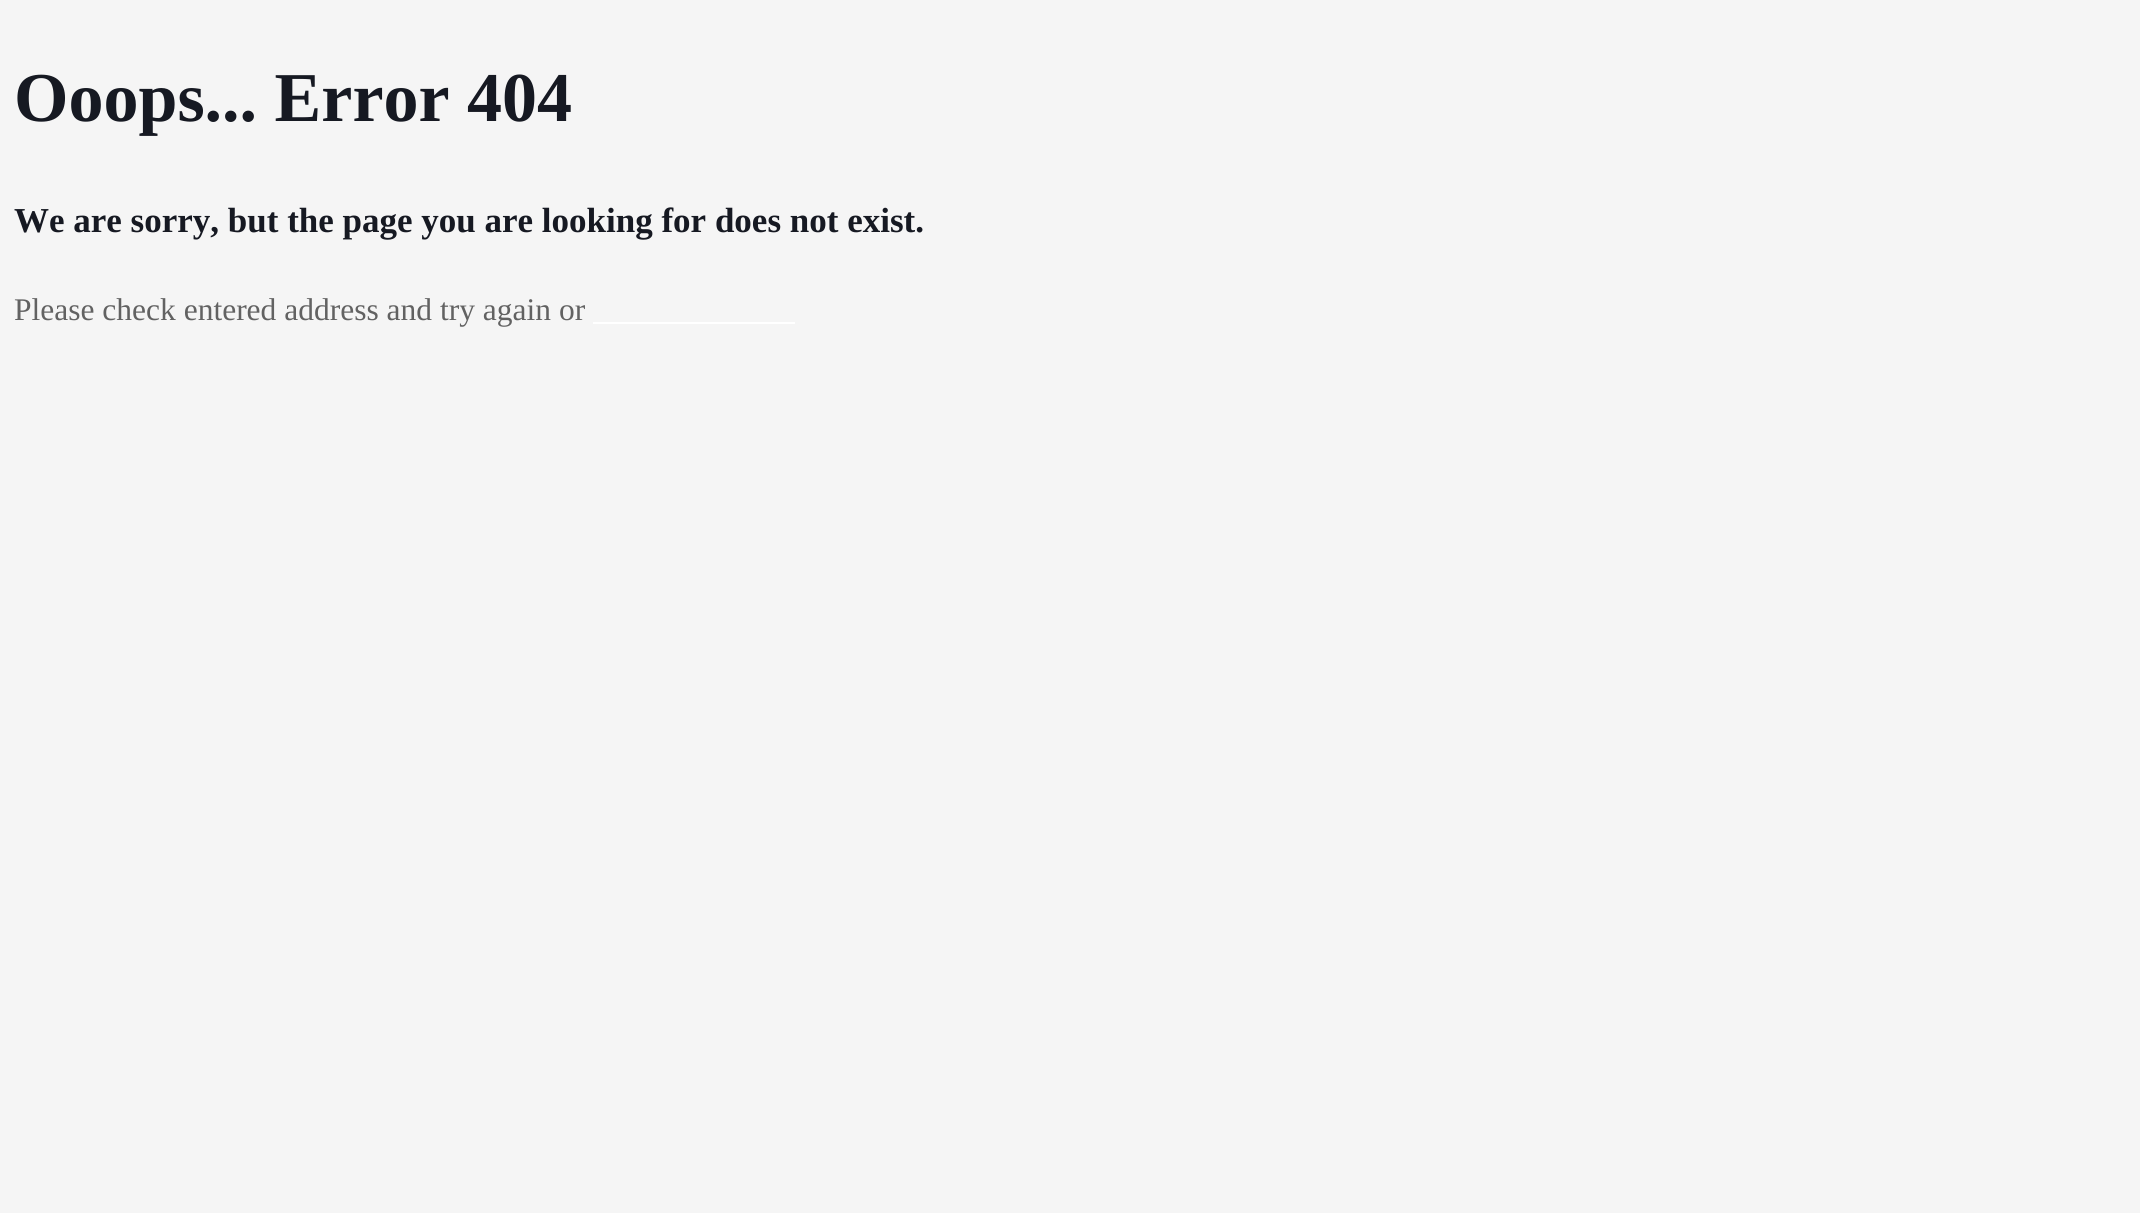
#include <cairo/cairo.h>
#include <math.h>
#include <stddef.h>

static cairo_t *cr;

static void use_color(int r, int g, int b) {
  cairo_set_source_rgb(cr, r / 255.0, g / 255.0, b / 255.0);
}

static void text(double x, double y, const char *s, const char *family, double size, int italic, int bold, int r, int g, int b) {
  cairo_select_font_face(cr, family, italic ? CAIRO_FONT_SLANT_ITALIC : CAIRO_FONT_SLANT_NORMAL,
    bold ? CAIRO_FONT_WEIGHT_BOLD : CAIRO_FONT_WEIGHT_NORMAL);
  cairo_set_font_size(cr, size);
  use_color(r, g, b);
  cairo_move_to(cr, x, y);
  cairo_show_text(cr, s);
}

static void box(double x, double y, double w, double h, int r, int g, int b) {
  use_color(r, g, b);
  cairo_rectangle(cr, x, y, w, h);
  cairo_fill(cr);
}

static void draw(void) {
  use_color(245, 245, 245);
  cairo_paint(cr);
  box(593, 322, 202, 2, 255, 255, 255);
  text(14, 121, "Ooops... Error 404", "Liberation Serif", 70, 0, 1, 22, 25, 34);
  text(14, 232, "We are sorry, but the page you are looking for does not exist.", "Liberation Serif", 35, 0, 1, 22, 25, 34);
  text(14, 320, "Please check entered address and try again or", "Liberation Serif", 31.5, 0, 0, 98, 98, 98);
}

int main(void) {
  cairo_surface_t *surface = cairo_image_surface_create(CAIRO_FORMAT_RGB24, 2140, 1213);
  cr = cairo_create(surface);
  cairo_font_options_t *options = cairo_font_options_create();
  cairo_font_options_set_hint_metrics(options, CAIRO_HINT_METRICS_OFF);
  cairo_font_options_set_hint_style(options, CAIRO_HINT_STYLE_NONE);
  cairo_set_font_options(cr, options);
  cairo_set_miter_limit(cr, 4);
  draw();
  cairo_surface_write_to_png(surface, "out.png");
  cairo_font_options_destroy(options);
  cairo_destroy(cr);
  cairo_surface_destroy(surface);
  return 0;
}
